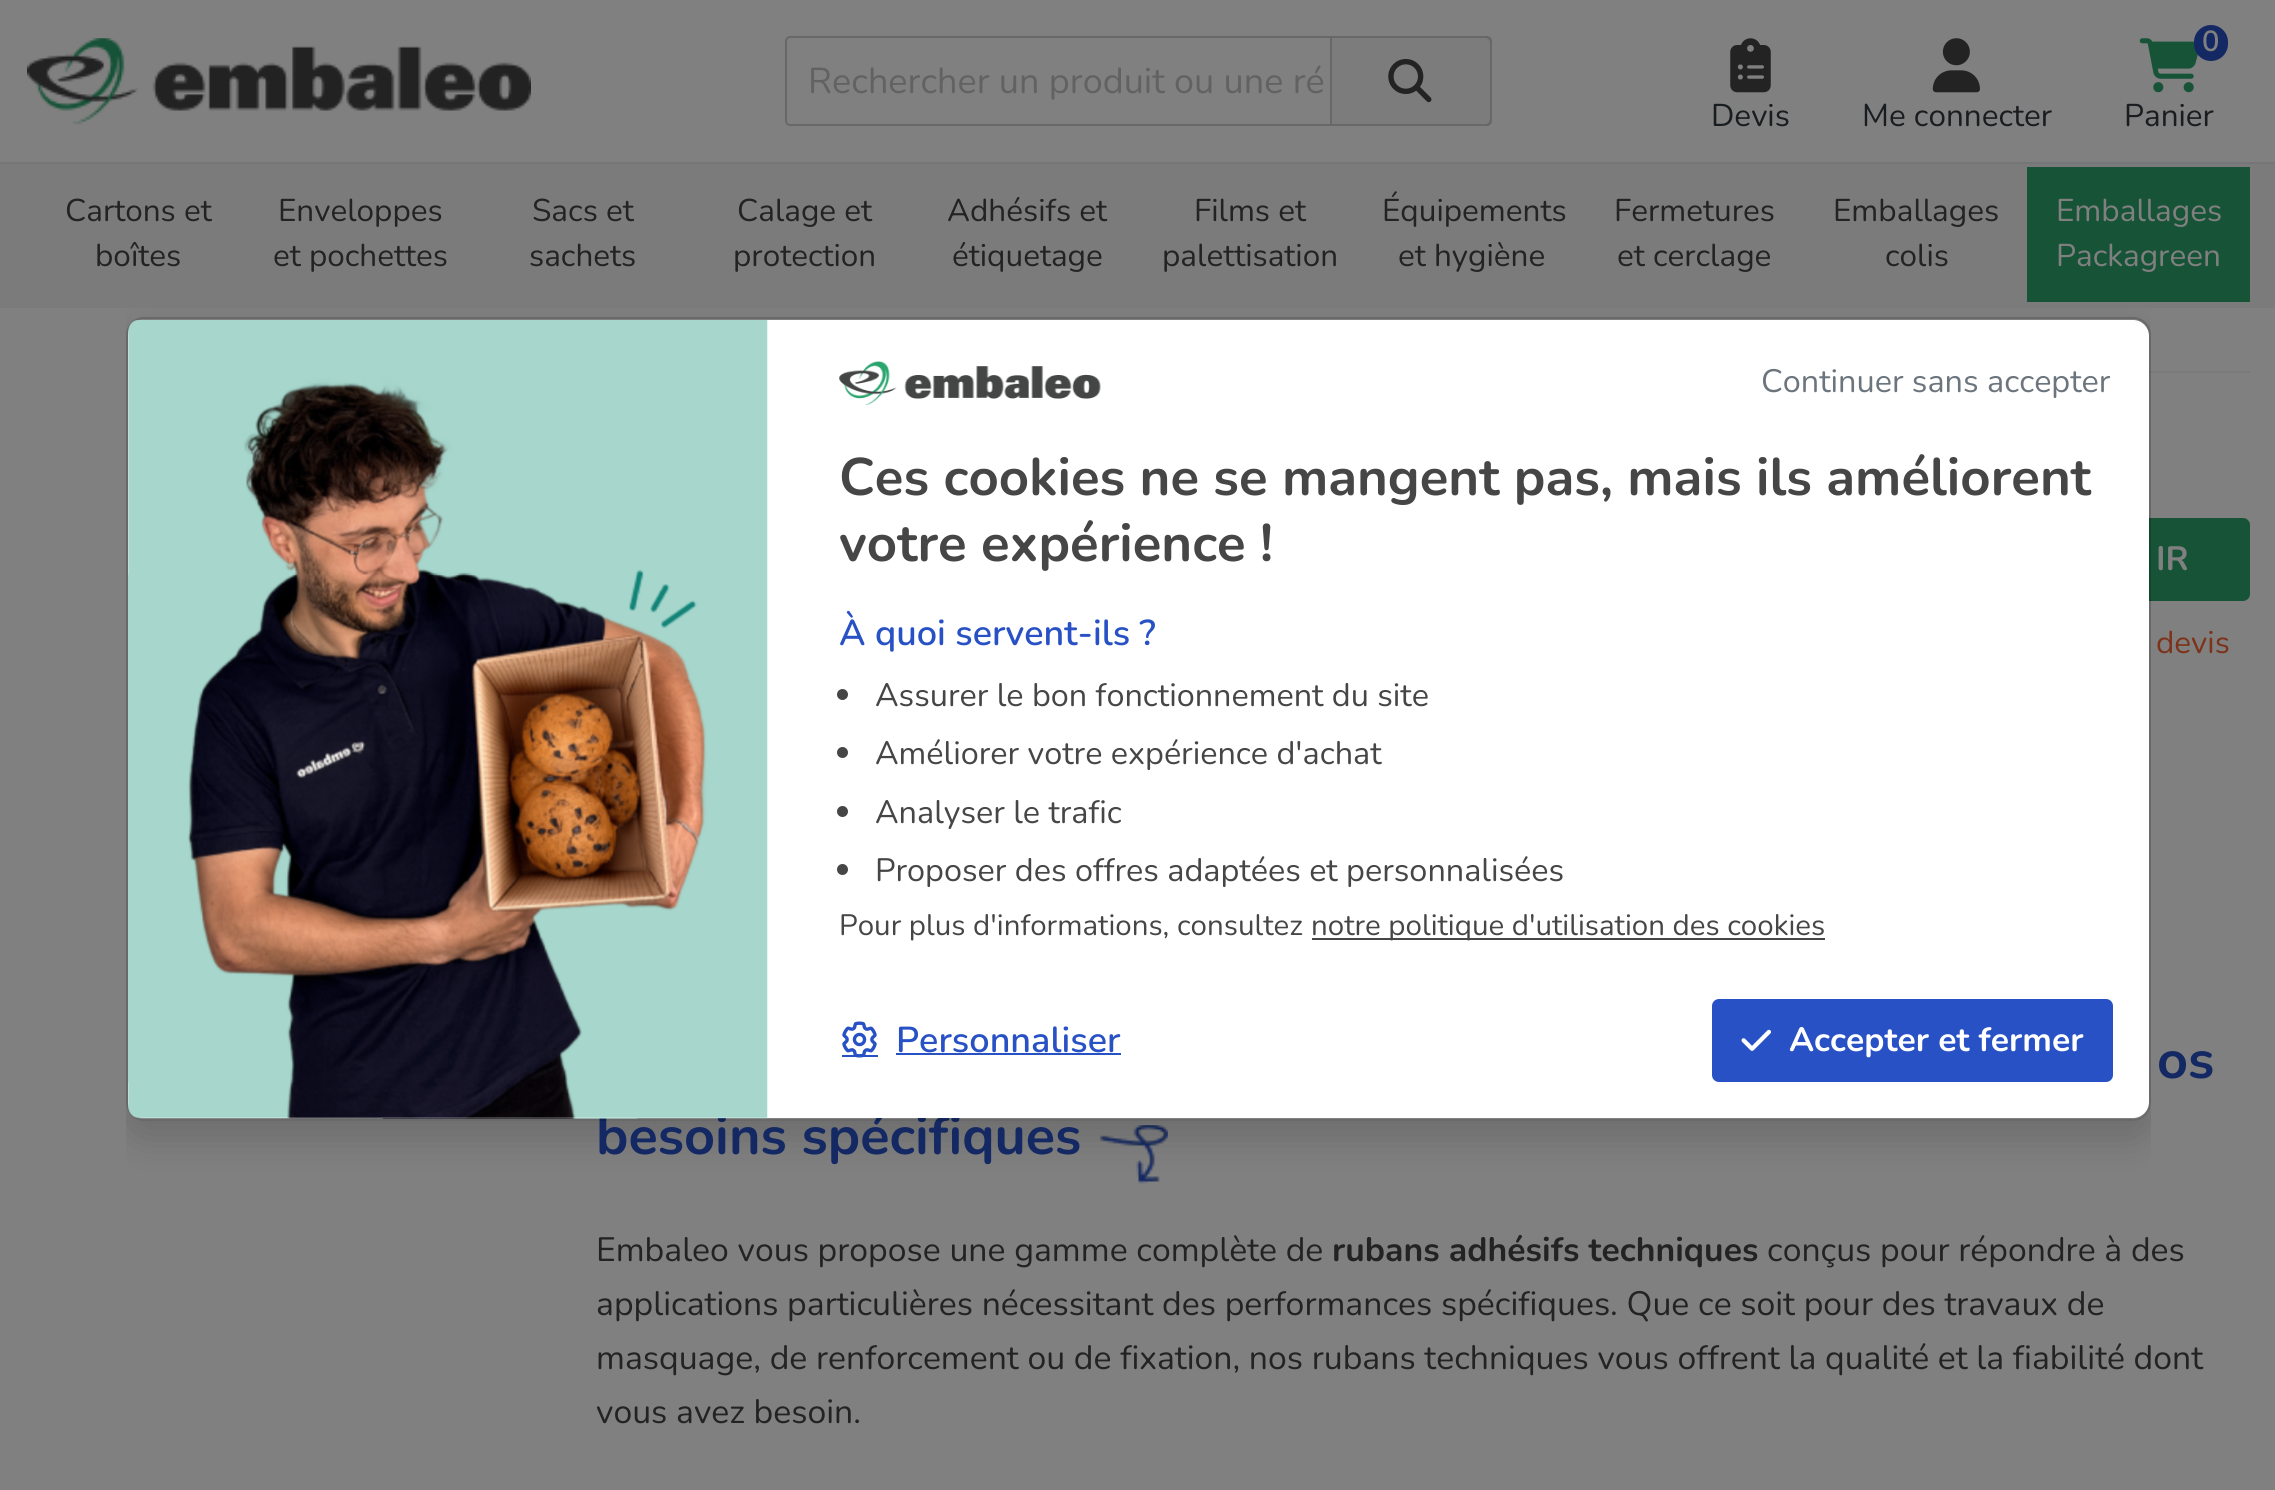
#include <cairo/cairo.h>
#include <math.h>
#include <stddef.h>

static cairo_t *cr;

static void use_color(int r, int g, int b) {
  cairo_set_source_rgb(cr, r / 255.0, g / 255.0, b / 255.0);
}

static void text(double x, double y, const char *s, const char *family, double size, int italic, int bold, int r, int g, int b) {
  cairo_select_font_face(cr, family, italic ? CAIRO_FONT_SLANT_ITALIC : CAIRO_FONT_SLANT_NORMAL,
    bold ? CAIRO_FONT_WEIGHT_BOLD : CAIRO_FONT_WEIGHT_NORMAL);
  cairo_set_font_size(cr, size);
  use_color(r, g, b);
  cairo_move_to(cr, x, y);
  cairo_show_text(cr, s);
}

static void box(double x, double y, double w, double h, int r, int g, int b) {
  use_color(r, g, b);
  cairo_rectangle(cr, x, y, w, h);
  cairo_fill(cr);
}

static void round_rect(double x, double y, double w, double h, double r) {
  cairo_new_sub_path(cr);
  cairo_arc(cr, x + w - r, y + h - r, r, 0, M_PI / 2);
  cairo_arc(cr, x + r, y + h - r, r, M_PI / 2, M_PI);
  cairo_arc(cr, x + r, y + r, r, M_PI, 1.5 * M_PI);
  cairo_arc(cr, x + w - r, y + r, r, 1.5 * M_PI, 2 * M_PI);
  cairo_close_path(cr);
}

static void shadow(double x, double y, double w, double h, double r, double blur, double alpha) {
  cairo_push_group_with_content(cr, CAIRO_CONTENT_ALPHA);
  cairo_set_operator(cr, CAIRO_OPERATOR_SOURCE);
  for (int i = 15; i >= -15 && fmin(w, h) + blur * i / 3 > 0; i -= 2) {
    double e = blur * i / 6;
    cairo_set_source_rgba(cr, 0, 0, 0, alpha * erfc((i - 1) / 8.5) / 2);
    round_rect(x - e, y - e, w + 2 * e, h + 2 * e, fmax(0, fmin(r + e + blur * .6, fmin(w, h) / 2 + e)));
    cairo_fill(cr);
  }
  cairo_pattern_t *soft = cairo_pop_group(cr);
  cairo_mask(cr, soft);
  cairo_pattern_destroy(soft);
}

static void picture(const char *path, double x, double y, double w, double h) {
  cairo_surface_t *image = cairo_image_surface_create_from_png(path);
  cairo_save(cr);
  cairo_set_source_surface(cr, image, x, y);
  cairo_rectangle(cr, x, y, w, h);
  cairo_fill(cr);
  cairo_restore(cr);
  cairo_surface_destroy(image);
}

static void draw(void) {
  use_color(128, 128, 128);
  cairo_paint(cr);
  box(0, 162, 2275, 2, 117, 118, 120);
  picture("img_01.png", 27, 38, 504, 87);
  round_rect(786, 37, 705, 88, 4);
  use_color(104, 104, 104);
  cairo_stroke(cr);
  use_color(125, 124, 124);
  cairo_new_path(cr);
  cairo_move_to(cr, 1331, 37);
  cairo_line_to(cr, 1485, 37);
  cairo_curve_to(cr, 1488.5, 37, 1491, 39.5, 1491, 43);
  cairo_line_to(cr, 1491, 119);
  cairo_curve_to(cr, 1491, 122.5, 1488.5, 125, 1485, 125);
  cairo_line_to(cr, 1331, 125);
  cairo_close_path(cr);
  cairo_fill_preserve(cr);
  use_color(104, 104, 104);
  cairo_stroke(cr);
  picture("img_02.png", 1388, 58, 44, 45);
  picture("img_03.png", 1730, 38, 41, 55);
  picture("img_04.png", 1932, 38, 48, 55);
  picture("img_05.png", 2139, 38, 59, 55);
  use_color(20, 41, 99);
  round_rect(2194, 25, 34, 36, 17);
  cairo_fill(cr);
  box(0, 164, 2275, 144, 123, 123, 123);
  box(2027, 167, 223, 135, 22, 83, 55);
  box(2149, 371, 101, 2, 122, 122, 122);
  use_color(22, 83, 55);
  round_rect(2044, 519, 205, 81, 6);
  cairo_fill_preserve(cr);
  cairo_stroke(cr);
  picture("img_10.png", 1100, 1125, 68, 59);
  cairo_save(cr);
  cairo_rectangle(cr, 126, 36, 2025, 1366);
  cairo_clip(cr);
  cairo_set_fill_rule(cr, CAIRO_FILL_RULE_EVEN_ODD);
  cairo_new_path(cr);
  cairo_move_to(cr, 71, 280);
  cairo_line_to(cr, 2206, 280);
  cairo_line_to(cr, 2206, 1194);
  cairo_line_to(cr, 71, 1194);
  cairo_close_path(cr);
  cairo_move_to(cr, 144, 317);
  cairo_line_to(cr, 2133, 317);
  cairo_curve_to(cr, 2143, 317, 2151, 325, 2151, 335);
  cairo_line_to(cr, 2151, 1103);
  cairo_curve_to(cr, 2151, 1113, 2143, 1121, 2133, 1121);
  cairo_line_to(cr, 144, 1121);
  cairo_curve_to(cr, 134, 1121, 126, 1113, 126, 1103);
  cairo_line_to(cr, 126, 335);
  cairo_curve_to(cr, 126, 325, 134, 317, 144, 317);
  cairo_close_path(cr);
  cairo_clip(cr);
  use_color(0, 0, 0);
  shadow(126, 335, 2025, 804, 18, 18, 0.15);
  cairo_restore(cr);
  text(808, 93, "Rechercher un produit ou une ré", "Nunito ExtraLight", 36, 0, 0, 98, 98, 98);
  text(1711, 126, "Devis", "Nunito ExtraLight", 31.5, 0, 0, 26, 29, 32);
  text(1862, 126, "Me connecter", "Nunito ExtraLight", 31.5, 0, 0, 26, 29, 32);
  text(2202, 51, "0", "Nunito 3 ExtraLight", 29, 0, 0, 128, 128, 128);
  text(2124, 126, "Panier", "Nunito ExtraLight", 31.5, 0, 0, 26, 29, 32);
  text(65, 221, "Cartons et", "Nunito ExtraLight", 31.5, 0, 0, 35, 35, 35);
  text(95, 266, "boîtes", "Nunito ExtraLight", 31.5, 0, 0, 35, 35, 35);
  text(278, 221, "Enveloppes", "Nunito ExtraLight", 31.5, 0, 0, 35, 35, 35);
  text(273, 266, "et pochettes", "Nunito ExtraLight", 31.5, 0, 0, 35, 35, 35);
  text(532, 221, "Sacs et", "Nunito ExtraLight", 31.5, 0, 0, 35, 35, 35);
  text(529, 266, "sachets", "Nunito ExtraLight", 31.5, 0, 0, 35, 35, 35);
  text(737, 221, "Calage et", "Nunito ExtraLight", 31.5, 0, 0, 35, 35, 35);
  text(733, 266, "protection", "Nunito ExtraLight", 31.5, 0, 0, 35, 35, 35);
  text(947, 221, "Adhésifs et", "Nunito ExtraLight", 31.5, 0, 0, 35, 35, 35);
  text(952, 266, "étiquetage", "Nunito ExtraLight", 31.5, 0, 0, 35, 35, 35);
  text(1194, 221, "Films et", "Nunito ExtraLight", 31.5, 0, 0, 35, 35, 35);
  text(1162, 266, "palettisation", "Nunito ExtraLight", 31.5, 0, 0, 35, 35, 35);
  text(1382, 221, "Équipements", "Nunito ExtraLight", 31.5, 0, 0, 35, 35, 35);
  text(1398, 266, "et hygiène", "Nunito ExtraLight", 31.5, 0, 0, 35, 35, 35);
  text(1614, 221, "Fermetures", "Nunito ExtraLight", 31.5, 0, 0, 35, 35, 35);
  text(1617, 266, "et cerclage", "Nunito ExtraLight", 31.5, 0, 0, 35, 35, 35);
  text(1833, 221, "Emballages", "Nunito ExtraLight", 31.5, 0, 0, 35, 35, 35);
  text(1885, 266, "colis", "Nunito ExtraLight", 31.5, 0, 0, 35, 35, 35);
  text(2056, 221, "Emballages", "Nunito ExtraLight", 31.5, 0, 0, 128, 128, 128);
  text(2056, 266, "Packagreen", "Nunito ExtraLight", 31.5, 0, 0, 128, 128, 128);
  text(2156, 570, "IR", "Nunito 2 ExtraLight", 33.75, 0, 0, 128, 128, 128);
  text(2156, 653, "devis", "Nunito ExtraLight", 31.5, 0, 0, 124, 51, 26);
  text(2157, 1078, "os", "Nunito 2 ExtraLight", 54, 0, 0, 20, 41, 99);
  text(596, 1154, "besoins spécifiques", "Nunito 2 ExtraLight", 54, 0, 0, 20, 41, 99);
  use_color(255, 255, 255);
  round_rect(128, 320, 2021, 798, 16);
  cairo_fill(cr);
  round_rect(127, 318, 2023, 802, 17);
  cairo_set_source_rgba(cr, 0, 0, 0, 0.18);
  cairo_stroke(cr);
  use_color(39, 81, 197);
  round_rect(1713, 1000, 399, 81, 6);
  cairo_fill_preserve(cr);
  cairo_stroke(cr);
  text(1789, 1051, "Accepter et fermer", "Nunito 2 ExtraLight", 33.75, 0, 0, 255, 255, 255);
  picture("img_09.png", 1741, 1029, 30, 22);
  text(896, 1052, "Personnaliser", "Nunito 3 ExtraLight", 36, 0, 0, 39, 81, 197);
  box(896, 1053, 225, 2, 39, 81, 197);
  box(842, 1055, 36, 2, 39, 81, 197);
  picture("img_08.png", 842, 1021, 35, 37);
  box(1312, 938, 513, 2, 70, 70, 70);
  text(1311, 935, "notre politique d'utilisation des cookies", "Nunito ExtraLight", 29.5, 0, 0, 70, 70, 70);
  text(839, 935, "Pour plus d'informations, consultez", "Nunito ExtraLight", 29.5, 0, 0, 70, 70, 70);
  text(875, 881, "Proposer des offres adaptées et personnalisées", "Nunito ExtraLight", 32.4, 0, 0, 70, 70, 70);
  cairo_new_path(cr);
  cairo_arc(cr, 842.5, 869.5, 5.5, 0, 2 * M_PI);
  cairo_fill(cr);
  text(875, 823, "Analyser le trafic", "Nunito ExtraLight", 32.4, 0, 0, 70, 70, 70);
  cairo_new_path(cr);
  cairo_arc(cr, 842.5, 811.5, 5.5, 0, 2 * M_PI);
  cairo_fill(cr);
  text(875, 764, "Améliorer votre expérience d'achat", "Nunito ExtraLight", 32.4, 0, 0, 70, 70, 70);
  cairo_new_path(cr);
  cairo_arc(cr, 842.5, 752.5, 5.5, 0, 2 * M_PI);
  cairo_fill(cr);
  text(875, 706, "Assurer le bon fonctionnement du site", "Nunito ExtraLight", 32.4, 0, 0, 70, 70, 70);
  cairo_new_path(cr);
  cairo_arc(cr, 842.5, 694.5, 5.5, 0, 2 * M_PI);
  cairo_fill(cr);
  text(839, 645, "À quoi servent-ils ?", "Nunito 3 ExtraLight", 36, 0, 0, 39, 81, 197);
  picture("img_06.png", 128, 320, 640, 799);
  text(839, 561, "votre expérience !", "Nunito 2 ExtraLight", 52.75, 0, 0, 70, 70, 70);
  text(839, 495, "Ces cookies ne se mangent pas, mais ils améliorent", "Nunito 2 ExtraLight", 52.75, 0, 0, 70, 70, 70);
  text(1761, 392, "Continuer sans accepter", "Nunito ExtraLight", 32.4, 0, 0, 108, 117, 125);
  picture("img_07.png", 839, 361, 262, 44);
  text(596, 1261, "Embaleo vous propose une gamme complète de", "Nunito ExtraLight", 33.75, 0, 0, 35, 35, 35);
  text(1332, 1261, "rubans adhésifs techniques", "Nunito 2 ExtraLight", 33.75, 0, 0, 35, 35, 35);
  text(1767, 1261, "conçus pour répondre à des", "Nunito ExtraLight", 33.75, 0, 0, 35, 35, 35);
  text(596, 1315, "applications particulières nécessitant des performances spécifiques. Que ce soit pour des travaux de", "Nunito ExtraLight", 33.75, 0, 0, 35, 35, 35);
  text(596, 1369, "masquage, de renforcement ou de fixation, nos rubans techniques vous offrent la qualité et la fiabilité dont", "Nunito ExtraLight", 33.75, 0, 0, 35, 35, 35);
  text(596, 1423, "vous avez besoin.", "Nunito ExtraLight", 33.75, 0, 0, 35, 35, 35);
}

int main(void) {
  cairo_surface_t *surface = cairo_image_surface_create(CAIRO_FORMAT_RGB24, 2275, 1490);
  cr = cairo_create(surface);
  cairo_font_options_t *options = cairo_font_options_create();
  cairo_font_options_set_hint_metrics(options, CAIRO_HINT_METRICS_OFF);
  cairo_font_options_set_hint_style(options, CAIRO_HINT_STYLE_NONE);
  cairo_set_font_options(cr, options);
  cairo_set_miter_limit(cr, 4);
  draw();
  cairo_surface_write_to_png(surface, "out.png");
  cairo_font_options_destroy(options);
  cairo_destroy(cr);
  cairo_surface_destroy(surface);
  return 0;
}
